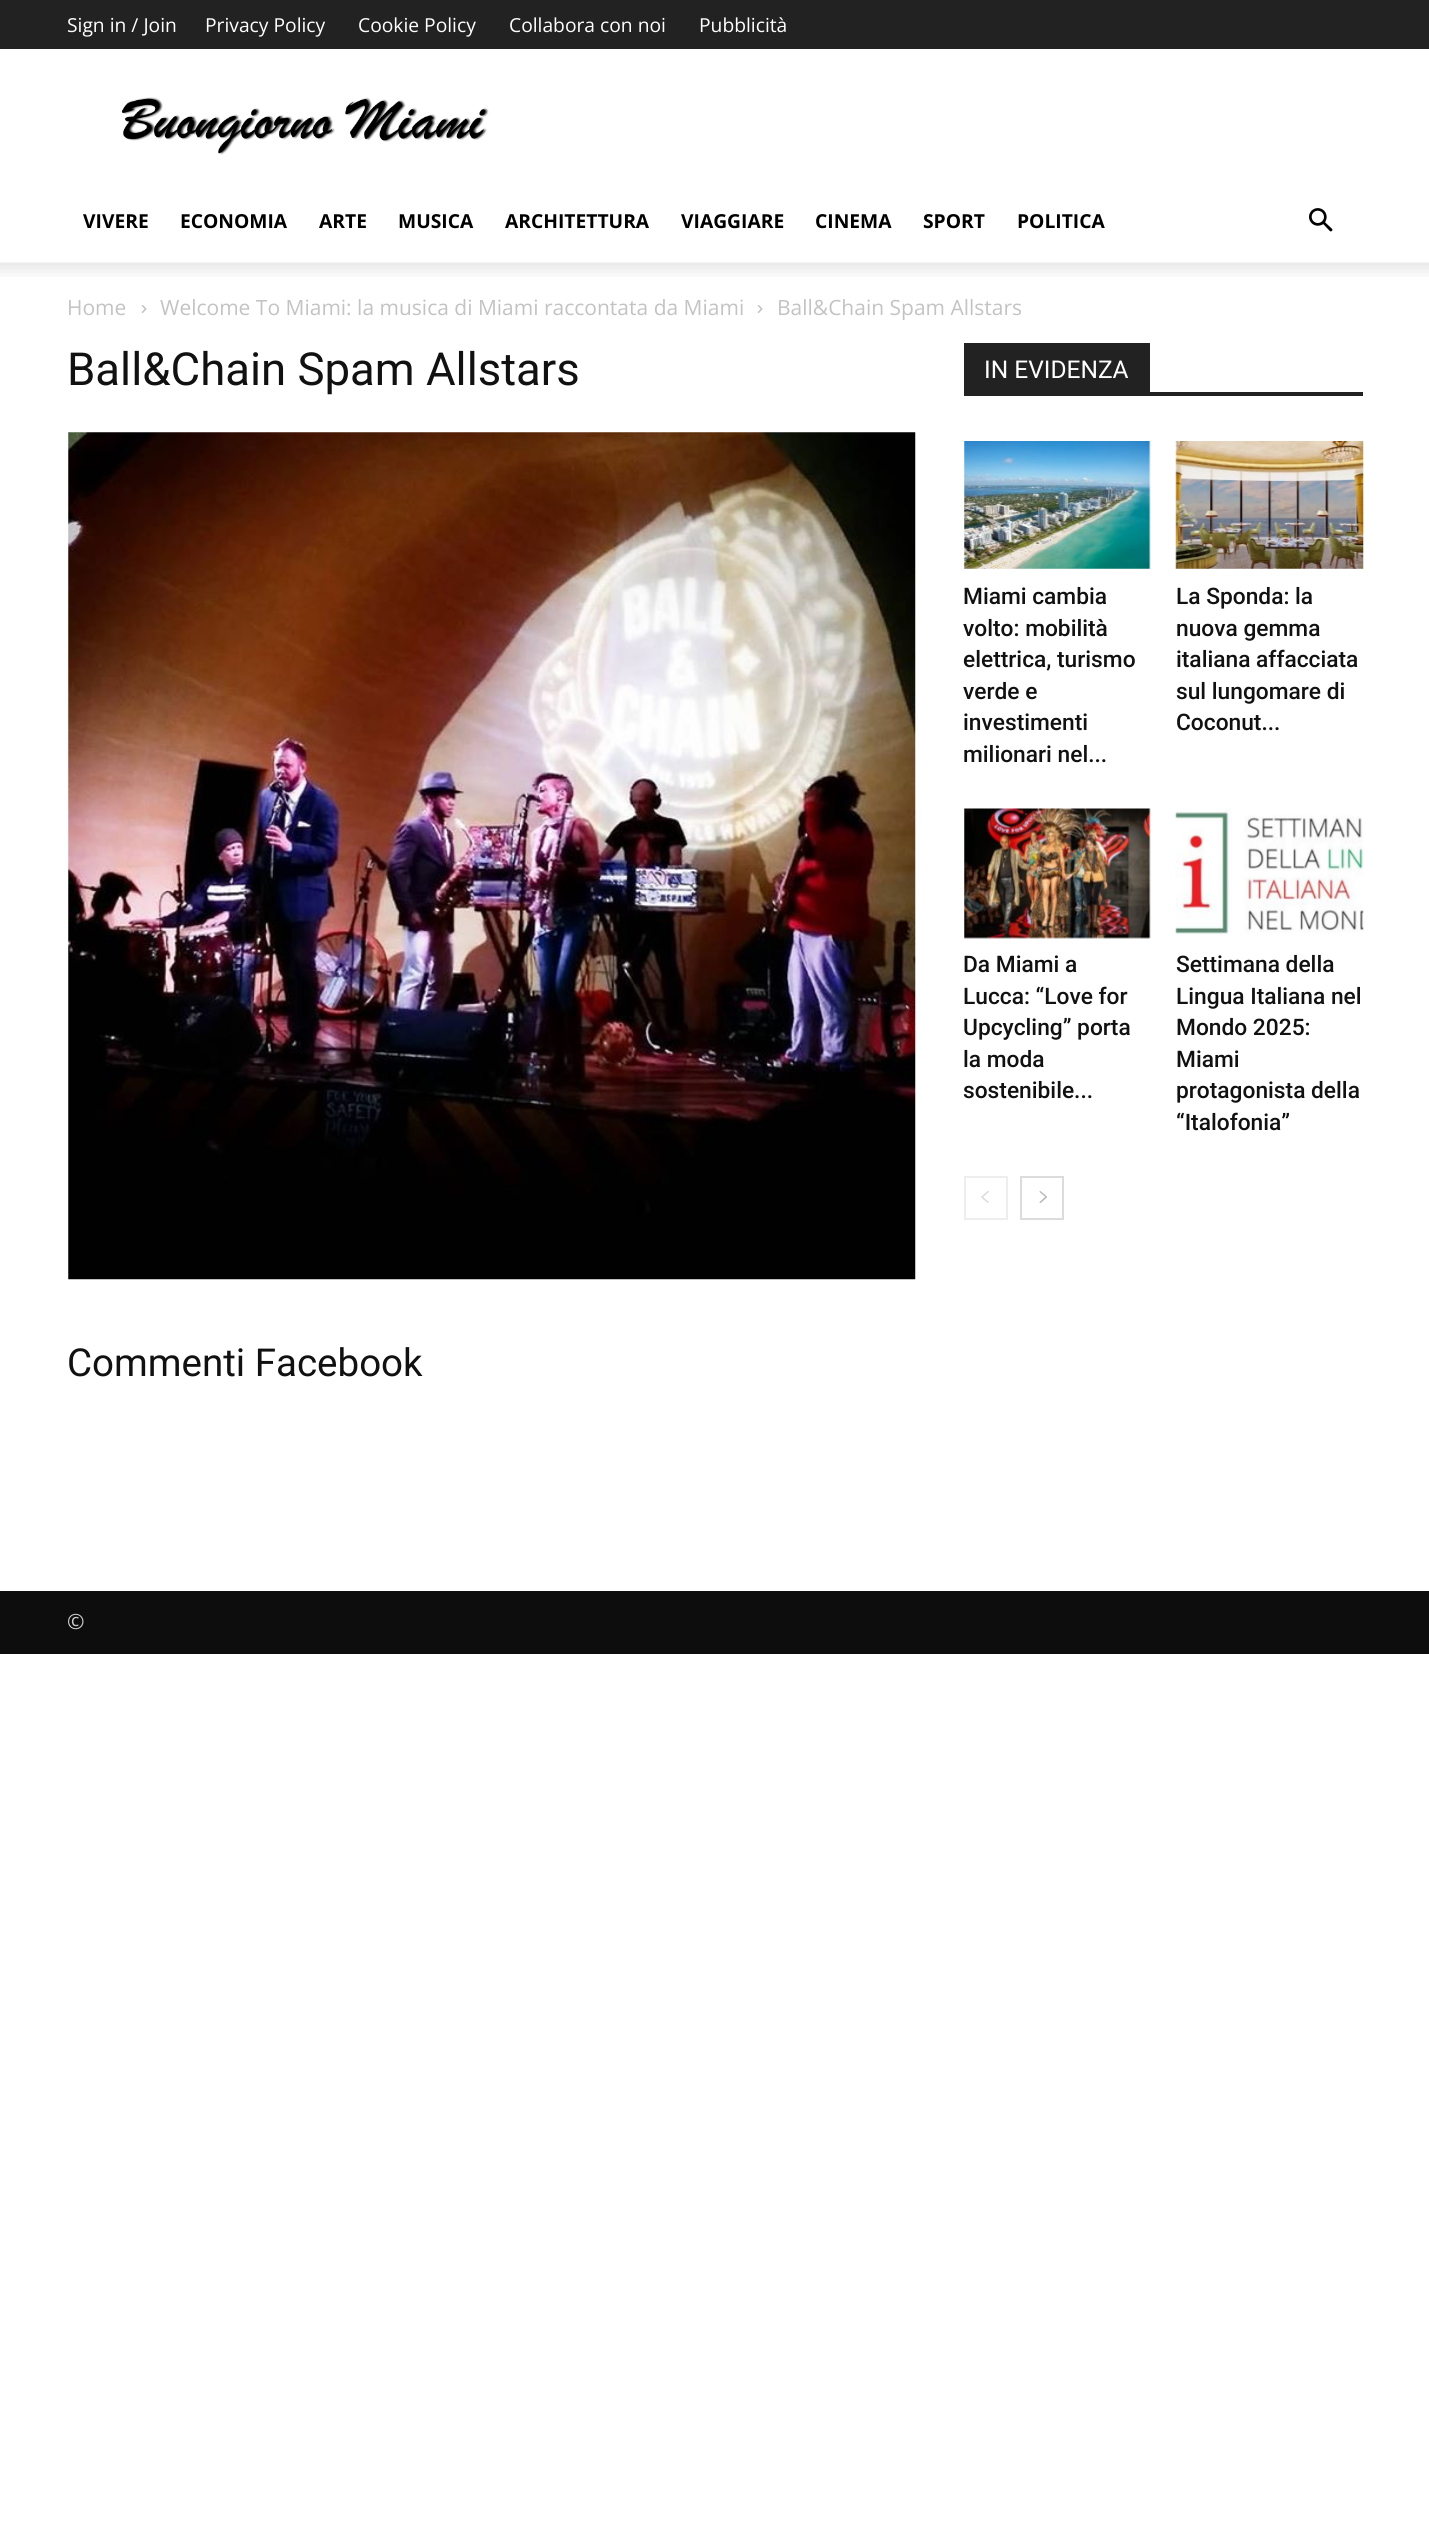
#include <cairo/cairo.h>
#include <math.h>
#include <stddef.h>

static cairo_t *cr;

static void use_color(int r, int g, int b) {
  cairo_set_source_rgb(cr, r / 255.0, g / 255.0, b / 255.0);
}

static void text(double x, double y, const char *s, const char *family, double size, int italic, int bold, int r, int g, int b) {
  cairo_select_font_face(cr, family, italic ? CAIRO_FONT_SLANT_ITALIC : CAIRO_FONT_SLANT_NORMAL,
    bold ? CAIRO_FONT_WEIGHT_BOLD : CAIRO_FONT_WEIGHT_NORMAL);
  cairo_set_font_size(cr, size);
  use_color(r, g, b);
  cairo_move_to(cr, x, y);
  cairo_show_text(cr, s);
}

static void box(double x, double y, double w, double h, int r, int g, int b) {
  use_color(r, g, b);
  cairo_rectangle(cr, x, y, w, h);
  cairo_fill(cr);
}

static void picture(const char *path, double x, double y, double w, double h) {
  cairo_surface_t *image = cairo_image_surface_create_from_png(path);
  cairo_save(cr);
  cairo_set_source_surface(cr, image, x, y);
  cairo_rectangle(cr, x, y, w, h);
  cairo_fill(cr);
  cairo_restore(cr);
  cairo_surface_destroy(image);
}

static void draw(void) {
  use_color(255, 255, 255);
  cairo_paint(cr);
  box(0, 0, 1429, 49, 34, 34, 34);
  picture("img_01.png", 121, 97, 368, 58);
  picture("img_02.png", 1309, 208, 24, 24);
  picture("img_03.png", 0, 262, 1429, 15);
  picture("img_04.png", 141, 305, 6, 8);
  picture("img_04.png", 757, 305, 6, 8);
  picture("img_05.png", 68, 432, 848, 848);
  box(964, 392, 399, 4, 34, 34, 34);
  box(964, 343, 186, 49, 34, 34, 34);
  picture("img_06.png", 964, 441, 187, 128);
  picture("img_07.png", 1175, 441, 189, 128);
  picture("img_08.png", 964, 808, 187, 131);
  picture("img_09.png", 1175, 808, 189, 127);
  cairo_rectangle(cr, 965, 1177, 42, 42);
  use_color(238, 238, 238);
  cairo_stroke(cr);
  picture("img_10.png", 981, 1191, 8, 12);
  cairo_rectangle(cr, 1021, 1177, 42, 42);
  use_color(220, 220, 220);
  cairo_stroke(cr);
  picture("img_11.png", 1039, 1191, 8, 13);
  box(0, 1591, 1429, 63, 13, 13, 13);
  text(67, 32, "Sign in / Join", "Open Sans", 19.25, 0, 0, 255, 255, 255);
  text(205, 32, "Privacy Policy", "Open Sans", 19.25, 0, 0, 255, 255, 255);
  text(358, 32, "Cookie Policy", "Open Sans", 19.25, 0, 0, 255, 255, 255);
  text(509, 32, "Collabora con noi", "Open Sans", 19.25, 0, 0, 255, 255, 255);
  text(699, 32, "Pubblicità", "Open Sans", 19.25, 0, 0, 255, 255, 255);
  text(83, 228, "VIVERE", "Open Sans", 19.25, 0, 1, 0, 0, 0);
  text(180, 228, "ECONOMIA", "Open Sans", 19.25, 0, 1, 0, 0, 0);
  text(319, 228, "ARTE", "Open Sans", 19.25, 0, 1, 0, 0, 0);
  text(398, 228, "MUSICA", "Open Sans", 19.25, 0, 1, 0, 0, 0);
  text(505, 228, "ARCHITETTURA", "Open Sans", 19.25, 0, 1, 0, 0, 0);
  text(681, 228, "VIAGGIARE", "Open Sans", 19.25, 0, 1, 0, 0, 0);
  text(815, 228, "CINEMA", "Open Sans", 19.25, 0, 1, 0, 0, 0);
  text(923, 228, "SPORT", "Open Sans", 19.25, 0, 1, 0, 0, 0);
  text(1017, 228, "POLITICA", "Open Sans", 19.25, 0, 1, 0, 0, 0);
  text(67, 315, "Home", "Open Sans", 21, 0, 0, 195, 195, 195);
  text(160, 315, "Welcome To Miami: la musica di Miami raccontata da Miami", "Open Sans", 21, 0, 0, 195, 195, 195);
  text(777, 315, "Ball&Chain Spam Allstars", "Open Sans", 21, 0, 0, 195, 195, 195);
  text(67, 385, "Ball&Chain Spam Allstars", "Roboto", 45.5, 0, 0, 17, 17, 17);
  text(67, 1376, "Commenti Facebook", "Roboto", 38.5, 0, 0, 17, 17, 17);
  text(984, 378, "IN EVIDENZA", "Roboto", 24.5, 0, 0, 255, 255, 255);
  text(963, 604, "Miami cambia", "Roboto Medium", 22.75, 0, 0, 17, 17, 17);
  text(963, 636, "volto: mobilità", "Roboto Medium", 22.75, 0, 0, 17, 17, 17);
  text(963, 667, "elettrica, turismo", "Roboto Medium", 22.75, 0, 0, 17, 17, 17);
  text(963, 699, "verde e", "Roboto Medium", 22.75, 0, 0, 17, 17, 17);
  text(963, 730, "investimenti", "Roboto Medium", 22.75, 0, 0, 17, 17, 17);
  text(963, 762, "milionari nel...", "Roboto Medium", 22.75, 0, 0, 17, 17, 17);
  text(1176, 604, "La Sponda: la", "Roboto Medium", 22.75, 0, 0, 17, 17, 17);
  text(1176, 636, "nuova gemma", "Roboto Medium", 22.75, 0, 0, 17, 17, 17);
  text(1176, 667, "italiana affacciata", "Roboto Medium", 22.75, 0, 0, 17, 17, 17);
  text(1176, 699, "sul lungomare di", "Roboto Medium", 22.75, 0, 0, 17, 17, 17);
  text(1176, 730, "Coconut...", "Roboto Medium", 22.75, 0, 0, 17, 17, 17);
  text(963, 972, "Da Miami a", "Roboto Medium", 22.75, 0, 0, 17, 17, 17);
  text(963, 1004, "Lucca: “Love for", "Roboto Medium", 22.75, 0, 0, 17, 17, 17);
  text(963, 1035, "Upcycling” porta", "Roboto Medium", 22.75, 0, 0, 17, 17, 17);
  text(963, 1067, "la moda", "Roboto Medium", 22.75, 0, 0, 17, 17, 17);
  text(963, 1098, "sostenibile...", "Roboto Medium", 22.75, 0, 0, 17, 17, 17);
  text(1176, 972, "Settimana della", "Roboto Medium", 22.75, 0, 0, 17, 17, 17);
  text(1176, 1004, "Lingua Italiana nel", "Roboto Medium", 22.75, 0, 0, 17, 17, 17);
  text(1176, 1035, "Mondo 2025:", "Roboto Medium", 22.75, 0, 0, 17, 17, 17);
  text(1176, 1067, "Miami", "Roboto Medium", 22.75, 0, 0, 17, 17, 17);
  text(1176, 1098, "protagonista della", "Roboto Medium", 22.75, 0, 0, 17, 17, 17);
  text(1176, 1130, "“Italofonia”", "Roboto Medium", 22.75, 0, 0, 17, 17, 17);
  text(67, 1629, "©", "Open Sans", 21, 0, 0, 204, 204, 204);
}

int main(void) {
  cairo_surface_t *surface = cairo_image_surface_create(CAIRO_FORMAT_RGB24, 1429, 2534);
  cr = cairo_create(surface);
  cairo_font_options_t *options = cairo_font_options_create();
  cairo_font_options_set_hint_metrics(options, CAIRO_HINT_METRICS_OFF);
  cairo_font_options_set_hint_style(options, CAIRO_HINT_STYLE_NONE);
  cairo_set_font_options(cr, options);
  cairo_set_miter_limit(cr, 4);
  draw();
  cairo_surface_write_to_png(surface, "out.png");
  cairo_font_options_destroy(options);
  cairo_destroy(cr);
  cairo_surface_destroy(surface);
  return 0;
}
